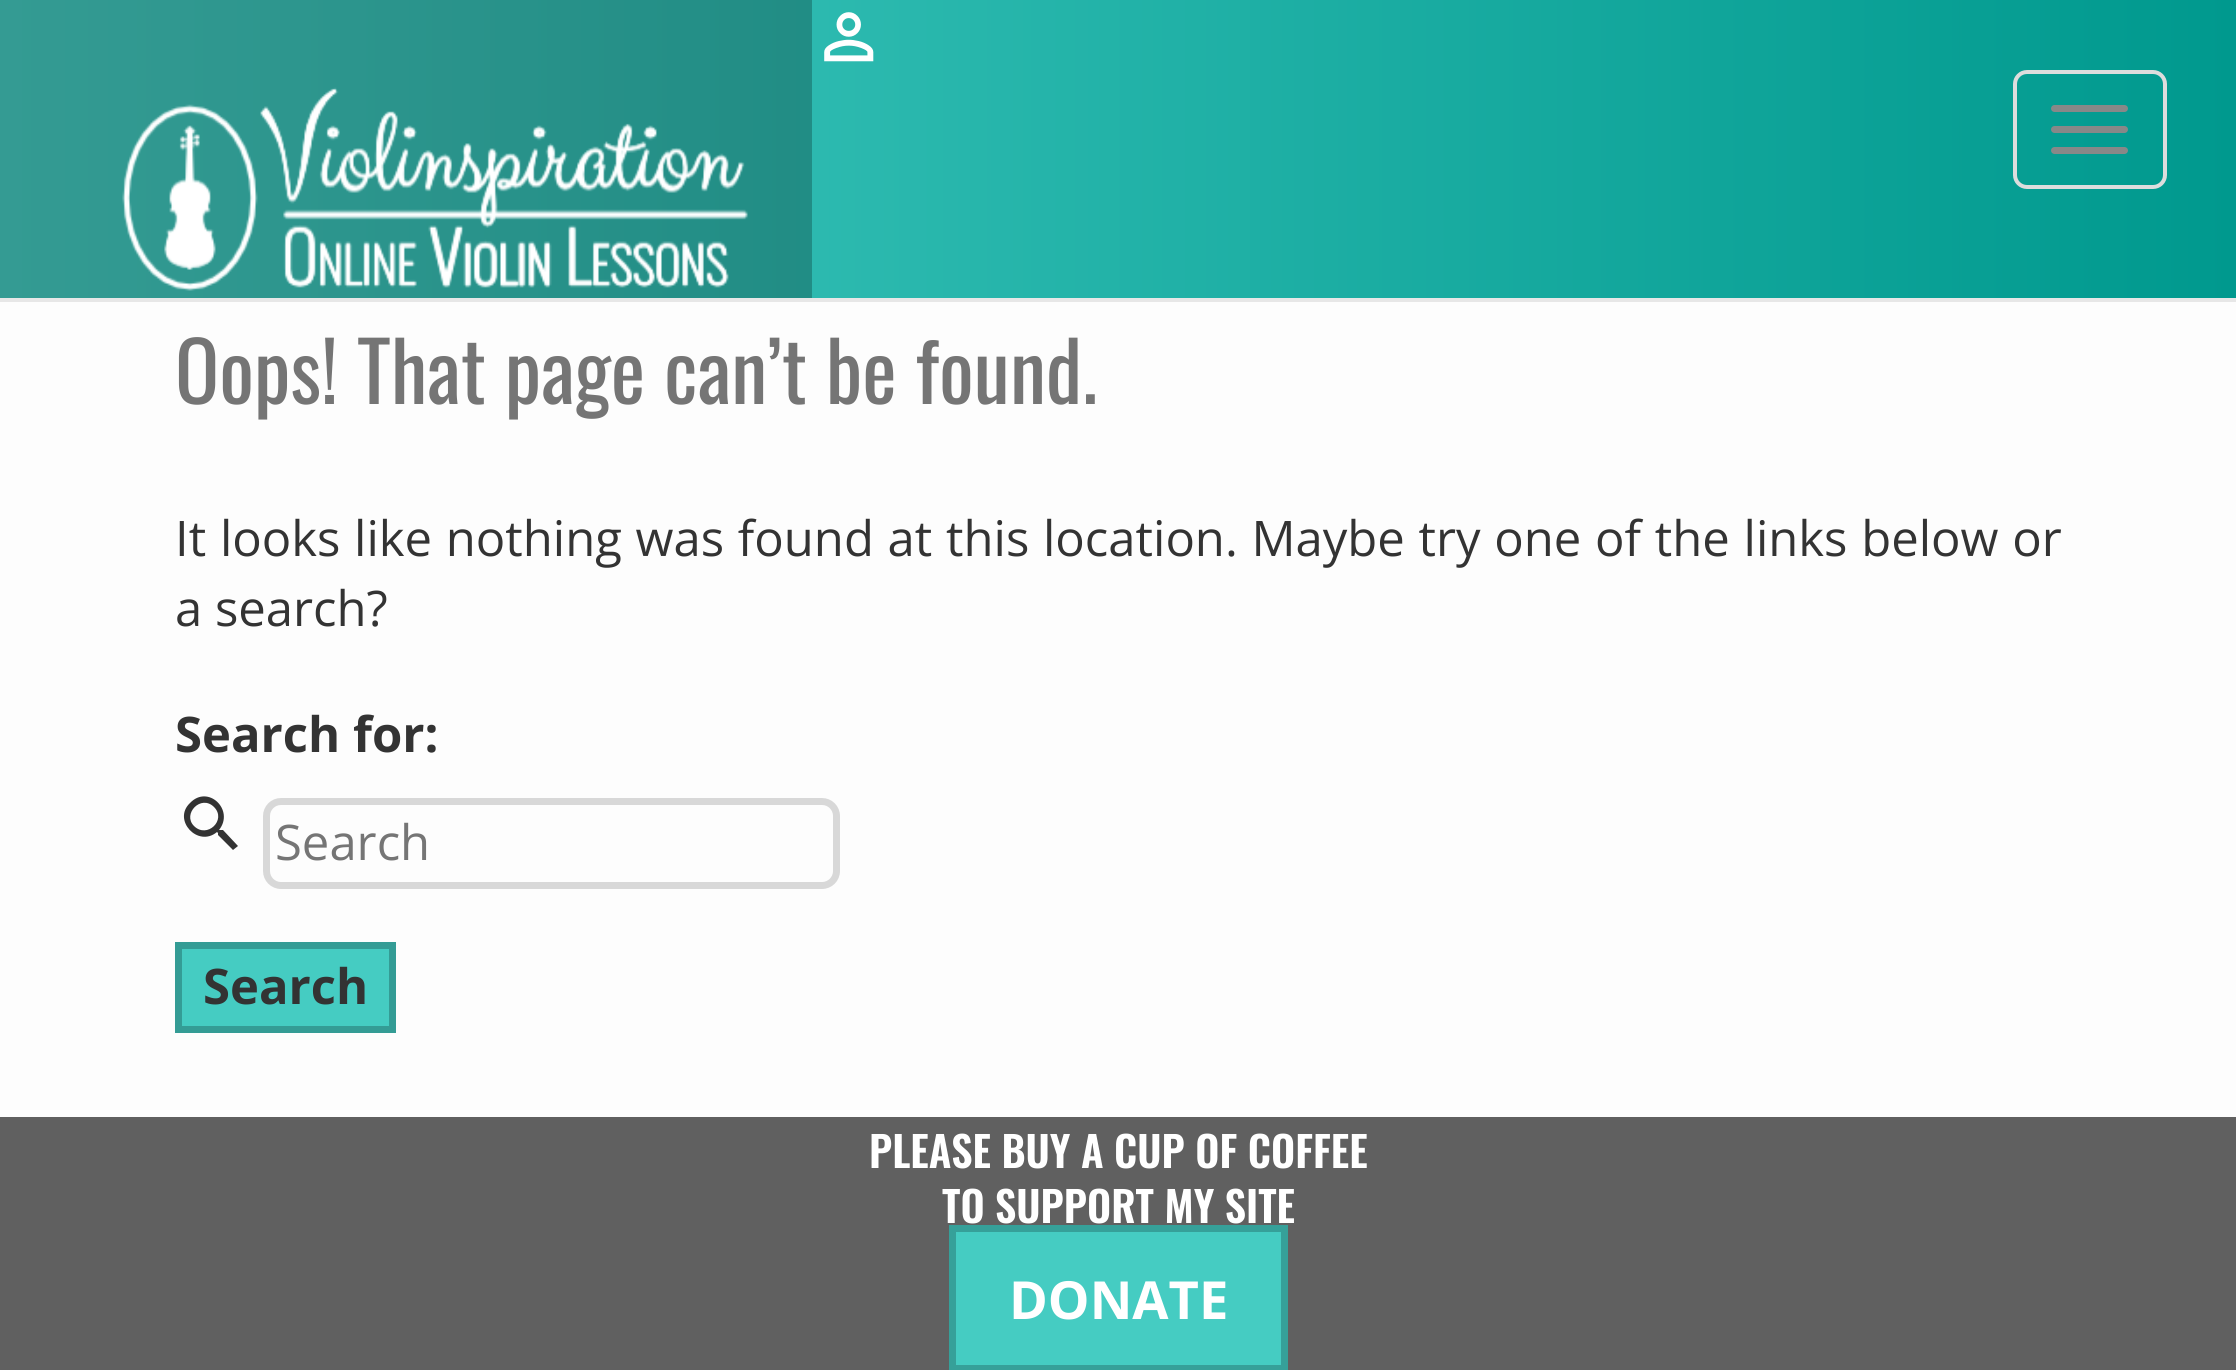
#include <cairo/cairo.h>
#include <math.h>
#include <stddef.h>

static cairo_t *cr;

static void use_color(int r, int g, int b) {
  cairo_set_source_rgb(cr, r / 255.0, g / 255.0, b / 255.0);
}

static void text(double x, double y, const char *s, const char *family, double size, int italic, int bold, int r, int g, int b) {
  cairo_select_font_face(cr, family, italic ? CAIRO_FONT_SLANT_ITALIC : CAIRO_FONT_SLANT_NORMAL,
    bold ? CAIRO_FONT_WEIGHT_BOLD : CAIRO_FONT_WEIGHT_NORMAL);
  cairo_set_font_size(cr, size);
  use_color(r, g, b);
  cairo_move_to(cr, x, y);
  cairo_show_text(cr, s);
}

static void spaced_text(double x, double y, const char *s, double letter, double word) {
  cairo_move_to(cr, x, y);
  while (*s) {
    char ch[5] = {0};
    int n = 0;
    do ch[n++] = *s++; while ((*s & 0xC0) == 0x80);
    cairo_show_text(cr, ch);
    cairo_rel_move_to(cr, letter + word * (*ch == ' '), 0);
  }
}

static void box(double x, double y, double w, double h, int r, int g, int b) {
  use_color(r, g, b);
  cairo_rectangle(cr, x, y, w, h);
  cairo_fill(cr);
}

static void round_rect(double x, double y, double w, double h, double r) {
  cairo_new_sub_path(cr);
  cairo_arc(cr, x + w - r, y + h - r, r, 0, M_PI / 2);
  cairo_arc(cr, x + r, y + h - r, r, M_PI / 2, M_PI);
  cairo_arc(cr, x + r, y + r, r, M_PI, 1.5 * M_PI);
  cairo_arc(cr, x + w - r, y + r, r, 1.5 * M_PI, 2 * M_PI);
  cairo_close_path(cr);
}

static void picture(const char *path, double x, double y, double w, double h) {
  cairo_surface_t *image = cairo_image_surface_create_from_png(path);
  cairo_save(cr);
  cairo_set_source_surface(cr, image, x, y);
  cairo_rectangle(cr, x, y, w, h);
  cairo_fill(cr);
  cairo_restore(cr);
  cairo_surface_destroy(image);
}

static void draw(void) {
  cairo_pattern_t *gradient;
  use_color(253, 253, 253);
  cairo_paint(cr);
  gradient = cairo_pattern_create_linear(0, 149, 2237, 149);
  cairo_pattern_add_color_stop_rgba(gradient, 0, 0.271, 0.8, 0.761, 1);
  cairo_pattern_add_color_stop_rgba(gradient, 1, 0, 0.6, 0.557, 1);
  cairo_set_source(cr, gradient);
  cairo_pattern_destroy(gradient);
  cairo_rectangle(cr, 812, 0, 1424, 298);
  cairo_fill(cr);
  gradient = cairo_pattern_create_linear(0, 149, 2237, 149);
  cairo_pattern_add_color_stop_rgba(gradient, 0, 0.204, 0.608, 0.576, 1);
  cairo_pattern_add_color_stop_rgba(gradient, 1, 0, 0.455, 0.424, 1);
  cairo_set_source(cr, gradient);
  cairo_pattern_destroy(gradient);
  cairo_rectangle(cr, 0, 0, 812, 298);
  cairo_fill(cr);
  box(0, 298, 2236, 4, 231, 231, 231);
  picture("img_01.png", 824, 12, 50, 50);
  picture("img_02.png", 122, 87, 626, 204);
  round_rect(2015, 72, 150, 115, 12);
  use_color(221, 221, 221);
  cairo_set_line_width(cr, 4);
  cairo_stroke(cr);
  use_color(136, 136, 136);
  round_rect(2051, 105, 77, 7, 3.5);
  cairo_fill(cr);
  round_rect(2051, 126, 77, 7, 3.5);
  cairo_fill(cr);
  round_rect(2051, 147, 77, 7, 3.5);
  cairo_fill(cr);
  use_color(51, 51, 51);
  cairo_new_path(cr);
  cairo_move_to(cr, 194, 826);
  cairo_curve_to(cr, 207, 839, 227, 820, 214, 807);
  cairo_curve_to(cr, 201, 794, 182, 814, 194, 826);
  cairo_close_path(cr);
  cairo_move_to(cr, 223, 830);
  cairo_line_to(cr, 238, 846);
  cairo_line_to(cr, 233, 850);
  cairo_line_to(cr, 218, 835);
  cairo_line_to(cr, 218, 833);
  cairo_line_to(cr, 217, 832);
  cairo_curve_to(cr, 198, 848, 172, 820, 190, 803);
  cairo_curve_to(cr, 208, 784, 235, 810, 219, 830);
  cairo_line_to(cr, 220, 830);
  cairo_close_path(cr);
  cairo_fill(cr);
  round_rect(266.5, 801.5, 570, 84, 14.5);
  use_color(216, 216, 216);
  cairo_set_line_width(cr, 7);
  cairo_stroke(cr);
  use_color(69, 204, 194);
  cairo_rectangle(cr, 178.5, 945.5, 214, 84);
  cairo_fill_preserve(cr);
  use_color(52, 156, 149);
  cairo_stroke(cr);
  box(0, 1117, 2236, 253, 96, 96, 96);
  use_color(69, 204, 194);
  cairo_rectangle(cr, 952.5, 1228.5, 332, 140);
  cairo_fill_preserve(cr);
  use_color(54, 160, 153);
  cairo_stroke(cr);
  text(175, 404, "Oops! That page can’t be found.", "Oswald", 81.9, 0, 0, 117, 117, 117);
  cairo_select_font_face(cr, "Open Sans", CAIRO_FONT_SLANT_NORMAL, CAIRO_FONT_WEIGHT_NORMAL);
  cairo_set_font_size(cr, 49);
  use_color(51, 51, 51);
  spaced_text(175, 556, "It looks like nothing was found at this location. Maybe try one of the links below or", 0, 1);
  text(175, 626, "a search?", "Open Sans", 49, 0, 0, 51, 51, 51);
  text(175, 752, "Search for:", "Open Sans", 49, 0, 1, 51, 51, 51);
  text(275, 860, "Search", "Open Sans", 49, 0, 0, 117, 117, 117);
  text(203, 1004, "Search", "Open Sans", 49, 0, 1, 51, 51, 51);
  text(869, 1168, "PLEASE BUY A CUP OF COFFEE", "Oswald SemiBold", 42, 0, 0, 255, 255, 255);
  text(942, 1223, "TO SUPPORT MY SITE", "Oswald SemiBold", 42, 0, 0, 255, 255, 255);
  text(1009, 1319, "DONATE", "Open Sans", 52.5, 0, 1, 255, 255, 255);
}

int main(void) {
  cairo_surface_t *surface = cairo_image_surface_create(CAIRO_FORMAT_RGB24, 2236, 1370);
  cr = cairo_create(surface);
  cairo_font_options_t *options = cairo_font_options_create();
  cairo_font_options_set_hint_metrics(options, CAIRO_HINT_METRICS_OFF);
  cairo_font_options_set_hint_style(options, CAIRO_HINT_STYLE_NONE);
  cairo_set_font_options(cr, options);
  cairo_set_miter_limit(cr, 4);
  draw();
  cairo_surface_write_to_png(surface, "out.png");
  cairo_font_options_destroy(options);
  cairo_destroy(cr);
  cairo_surface_destroy(surface);
  return 0;
}
